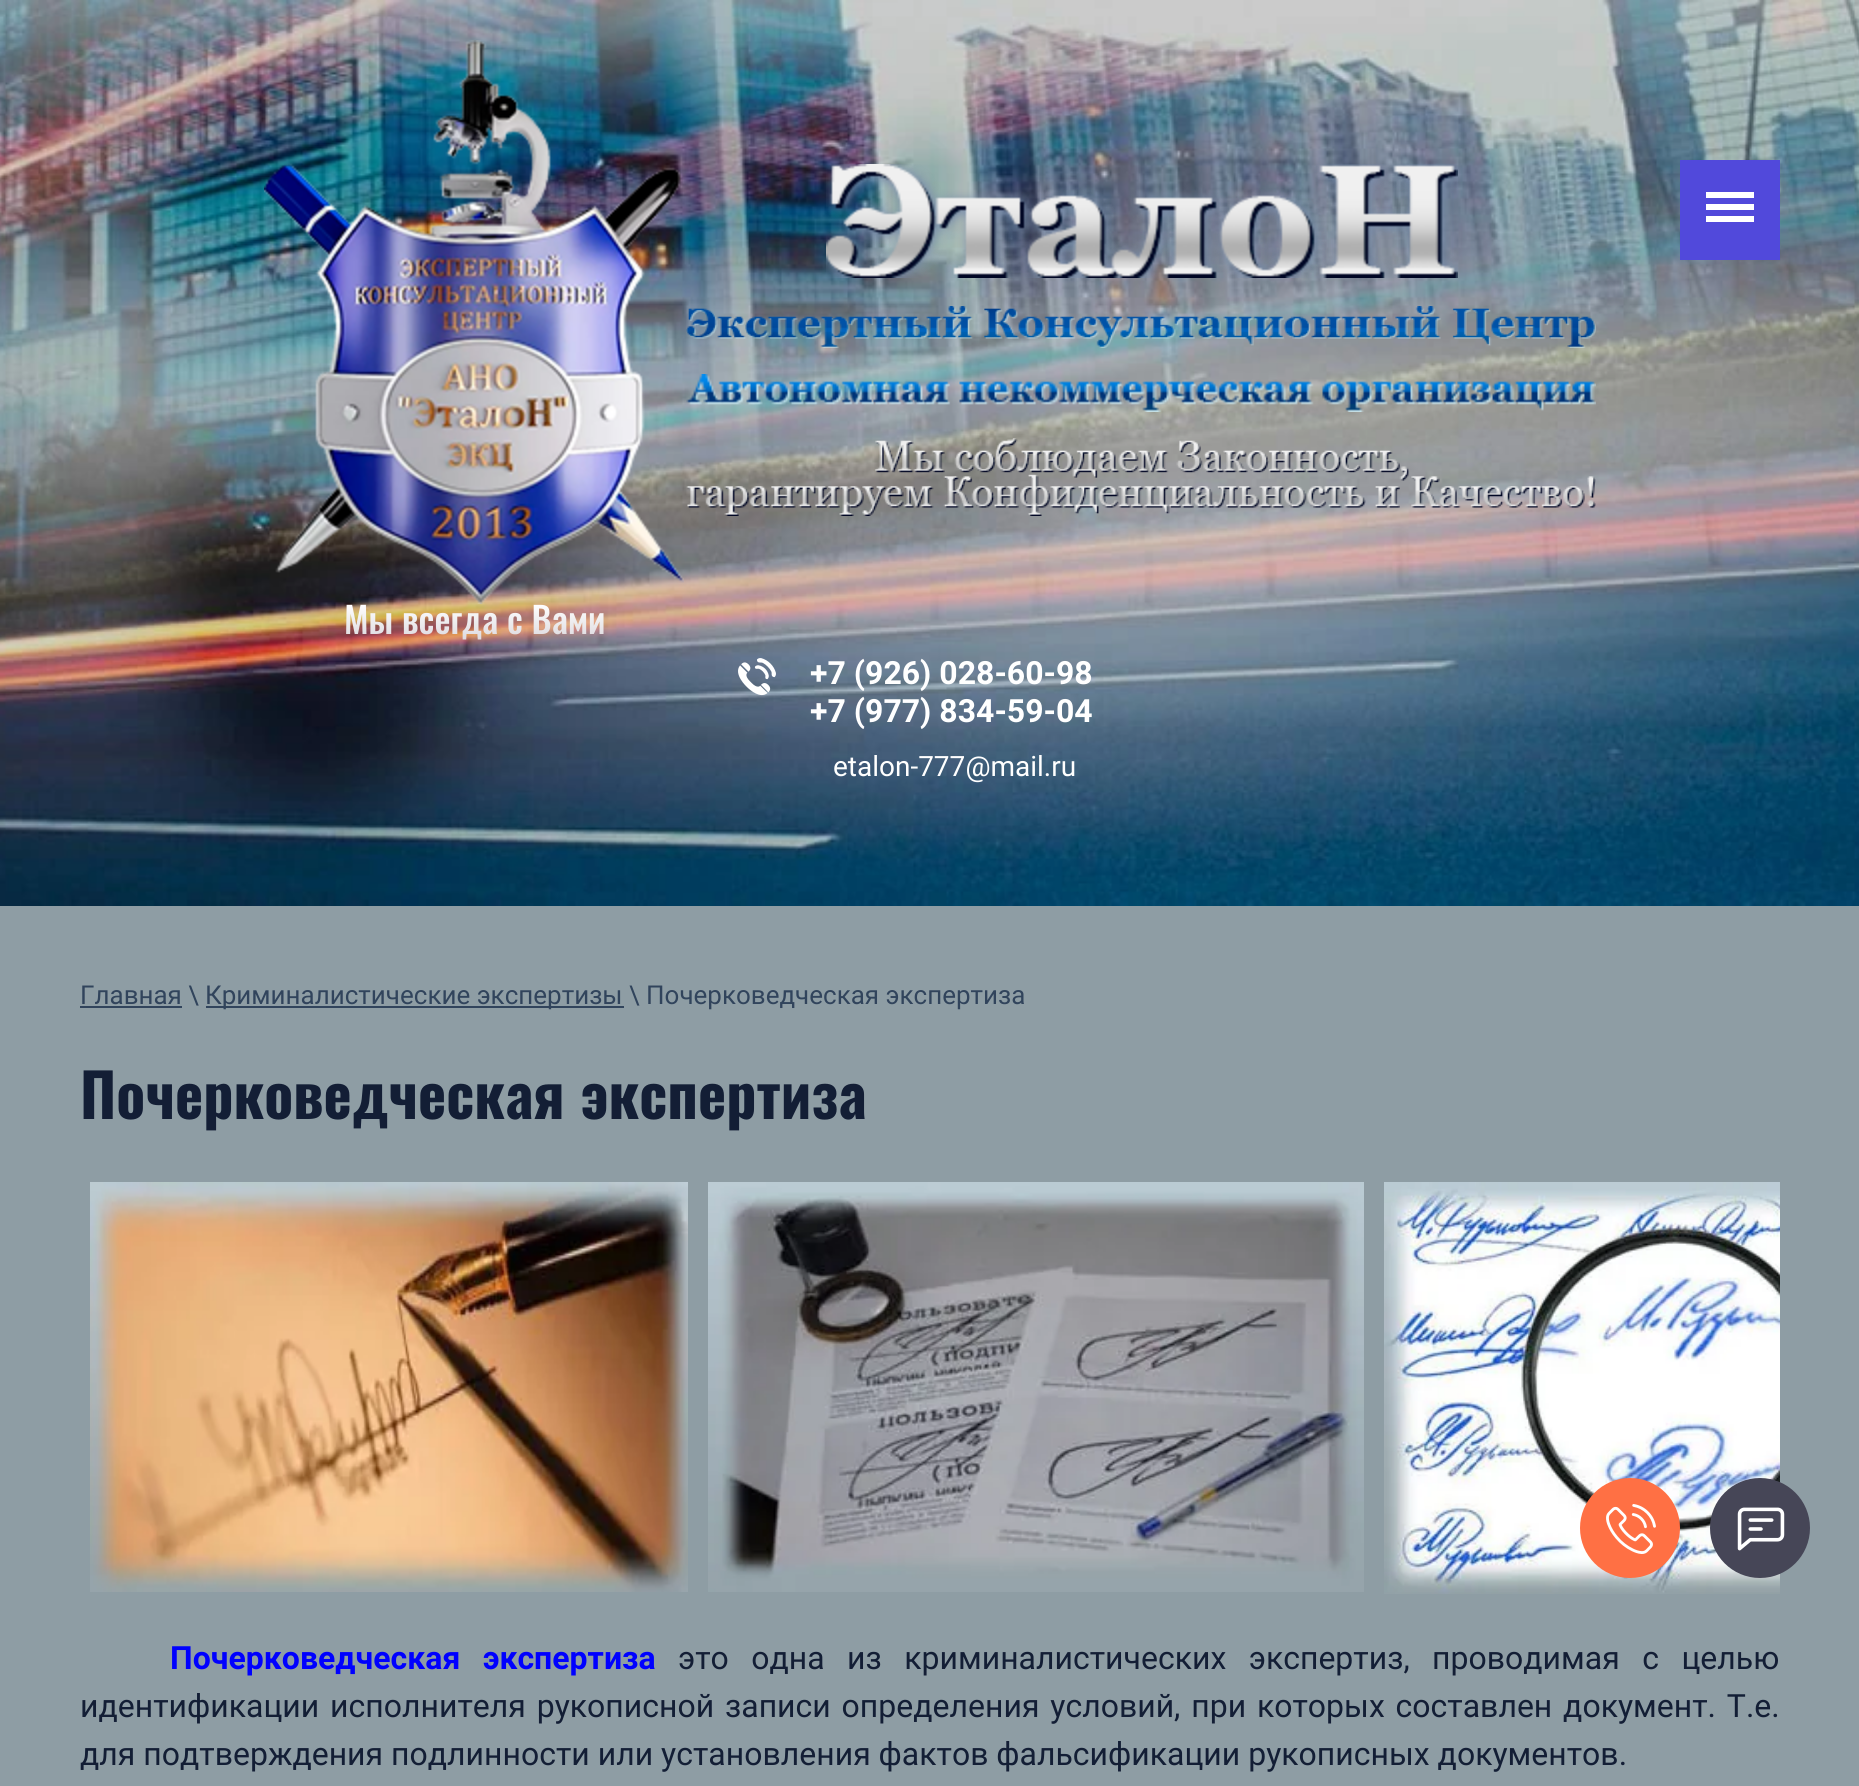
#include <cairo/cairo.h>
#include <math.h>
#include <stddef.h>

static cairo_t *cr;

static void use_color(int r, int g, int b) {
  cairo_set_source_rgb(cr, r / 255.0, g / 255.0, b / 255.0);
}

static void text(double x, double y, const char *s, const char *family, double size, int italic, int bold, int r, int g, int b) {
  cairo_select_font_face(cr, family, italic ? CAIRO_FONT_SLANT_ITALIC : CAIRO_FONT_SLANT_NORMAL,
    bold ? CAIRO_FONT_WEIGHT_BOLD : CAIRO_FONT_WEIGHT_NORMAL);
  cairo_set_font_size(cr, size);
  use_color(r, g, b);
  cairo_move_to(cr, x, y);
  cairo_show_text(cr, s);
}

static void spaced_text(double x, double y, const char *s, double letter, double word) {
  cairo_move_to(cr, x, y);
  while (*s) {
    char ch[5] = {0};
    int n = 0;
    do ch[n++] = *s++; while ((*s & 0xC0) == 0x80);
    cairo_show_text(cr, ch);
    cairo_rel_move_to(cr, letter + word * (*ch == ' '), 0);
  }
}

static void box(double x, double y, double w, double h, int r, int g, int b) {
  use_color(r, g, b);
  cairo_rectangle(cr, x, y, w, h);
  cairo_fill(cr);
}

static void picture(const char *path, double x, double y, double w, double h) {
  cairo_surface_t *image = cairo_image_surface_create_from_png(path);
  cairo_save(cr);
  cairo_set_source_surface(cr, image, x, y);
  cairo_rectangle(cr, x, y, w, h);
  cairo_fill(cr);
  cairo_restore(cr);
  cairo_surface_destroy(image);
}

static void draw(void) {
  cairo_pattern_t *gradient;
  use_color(142, 157, 164);
  cairo_paint(cr);
  picture("img_01.png", 0, 0, 1859, 906);
  box(1680, 160, 100, 100, 81, 73, 219);
  box(1706, 192, 48, 6, 255, 255, 255);
  box(1706, 204, 48, 6, 255, 255, 255);
  box(1706, 216, 48, 6, 255, 255, 255);
  picture("img_02.png", 826, 164, 632, 114);
  picture("img_03.png", 686, 306, 910, 42);
  picture("img_04.png", 686, 374, 910, 38);
  picture("img_05.png", 686, 438, 910, 78);
  picture("img_06.png", 264, 40, 420, 564);
  picture("img_07.png", 738, 658, 38, 38);
  box(80, 1006, 102, 2, 49, 68, 92);
  box(206, 1006, 418, 2, 49, 68, 92);
  picture("img_08.png", 90, 1182, 598, 410);
  picture("img_09.png", 708, 1182, 656, 410);
  picture("img_10.png", 1384, 1182, 396, 412);
  use_color(255, 112, 68);
  cairo_arc(cr, 1630, 1528, 50, 0, 2 * M_PI);
  cairo_fill(cr);
  picture("img_11.png", 1606, 1504, 50, 50);
  use_color(70, 70, 87);
  cairo_arc(cr, 1760, 1528, 50, 0, 2 * M_PI);
  cairo_fill(cr);
  picture("img_12.png", 1737, 1507, 48, 44);
  cairo_select_font_face(cr, "Oswald Medium", CAIRO_FONT_SLANT_NORMAL, CAIRO_FONT_WEIGHT_NORMAL);
  cairo_set_font_size(cr, 36);
  gradient = cairo_pattern_create_linear(475, 604, 475, 647);
  cairo_pattern_add_color_stop_rgba(gradient, 0, 1, 1, 1, 1);
  cairo_pattern_add_color_stop_rgba(gradient, 1, 0.839, 0.824, 0.847, 1);
  cairo_set_source(cr, gradient);
  cairo_pattern_destroy(gradient);
  cairo_move_to(cr, 344, 634);
  cairo_show_text(cr, "Мы всегда с Вами");
  text(810, 684, "+7 (926) 028-60-98", "Roboto", 32, 0, 1, 255, 255, 255);
  text(810, 722, "+7 (977) 834-59-04", "Roboto", 32, 0, 1, 255, 255, 255);
  text(833, 776, "etalon-777@mail.ru", "Roboto", 28, 0, 0, 255, 255, 255);
  text(80, 1004, "Главная \\", "Roboto", 26, 0, 0, 49, 68, 92);
  text(205, 1004, "Криминалистические экспертизы \\ Почерковедческая экспертиза", "Roboto", 26, 0, 0, 49, 68, 92);
  text(80, 1119, "Почерковедческая экспертиза", "Oswald", 60, 0, 1, 19, 30, 53);
  cairo_select_font_face(cr, "Roboto", CAIRO_FONT_SLANT_NORMAL, CAIRO_FONT_WEIGHT_BOLD);
  cairo_set_font_size(cr, 32);
  use_color(0, 0, 255);
  spaced_text(170, 1669, "Почерковедческая экспертиза", 0, 14.5);
  cairo_select_font_face(cr, "Roboto", CAIRO_FONT_SLANT_NORMAL, CAIRO_FONT_WEIGHT_NORMAL);
  use_color(19, 30, 53);
  spaced_text(678, 1669, "это одна из криминалистических экспертиз, проводимая с целью", 0, 14.5);
  spaced_text(80, 1717, "идентификации исполнителя рукописной записи определения условий, при которых составлен документ. Т.е.", 0, 2.9);
  text(80, 1765, "для подтверждения подлинности или установления фактов фальсификации рукописных документов.", "Roboto", 32, 0, 0, 19, 30, 53);
}

int main(void) {
  cairo_surface_t *surface = cairo_image_surface_create(CAIRO_FORMAT_RGB24, 1859, 1786);
  cr = cairo_create(surface);
  cairo_font_options_t *options = cairo_font_options_create();
  cairo_font_options_set_hint_metrics(options, CAIRO_HINT_METRICS_OFF);
  cairo_font_options_set_hint_style(options, CAIRO_HINT_STYLE_NONE);
  cairo_set_font_options(cr, options);
  cairo_set_miter_limit(cr, 4);
  draw();
  cairo_surface_write_to_png(surface, "out.png");
  cairo_font_options_destroy(options);
  cairo_destroy(cr);
  cairo_surface_destroy(surface);
  return 0;
}
